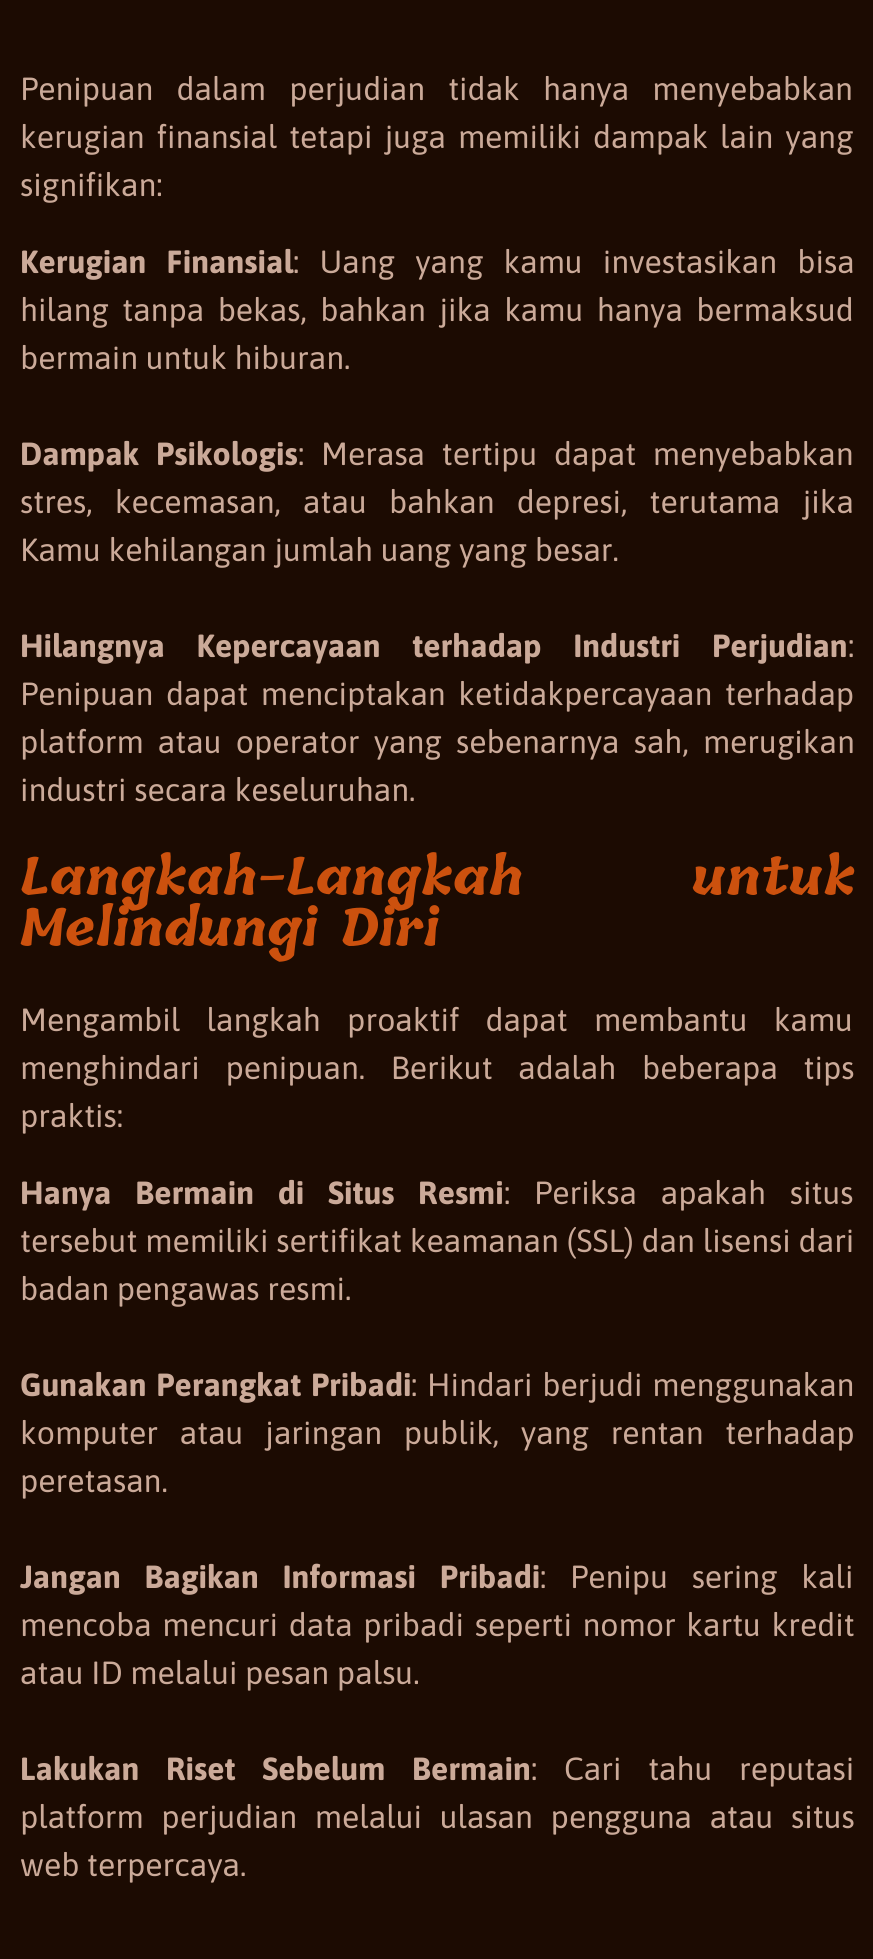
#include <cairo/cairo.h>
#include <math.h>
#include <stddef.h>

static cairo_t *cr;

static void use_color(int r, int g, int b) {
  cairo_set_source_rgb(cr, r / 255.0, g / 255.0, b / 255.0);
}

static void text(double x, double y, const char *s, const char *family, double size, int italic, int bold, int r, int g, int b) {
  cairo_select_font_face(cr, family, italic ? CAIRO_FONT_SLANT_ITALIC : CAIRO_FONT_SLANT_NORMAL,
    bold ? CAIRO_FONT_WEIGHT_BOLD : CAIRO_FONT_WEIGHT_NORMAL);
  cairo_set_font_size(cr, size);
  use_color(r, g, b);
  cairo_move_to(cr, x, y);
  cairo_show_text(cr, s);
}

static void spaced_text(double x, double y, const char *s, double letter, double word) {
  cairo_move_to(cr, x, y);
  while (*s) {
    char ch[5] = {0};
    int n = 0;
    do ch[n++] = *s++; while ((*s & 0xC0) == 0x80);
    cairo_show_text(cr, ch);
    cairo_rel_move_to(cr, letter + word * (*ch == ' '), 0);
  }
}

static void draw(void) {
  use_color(28, 11, 2);
  cairo_paint(cr);
  cairo_select_font_face(cr, "Asap", CAIRO_FONT_SLANT_NORMAL, CAIRO_FONT_WEIGHT_NORMAL);
  cairo_set_font_size(cr, 32);
  use_color(203, 170, 153);
  spaced_text(20, 100, "Penipuan dalam perjudian tidak hanya menyebabkan", 0, 15.5);
  spaced_text(20, 148, "kerugian finansial tetapi juga memiliki dampak lain yang", 0, 4.25);
  text(20, 196, "signifikan:", "Asap", 32, 0, 0, 203, 170, 153);
  cairo_select_font_face(cr, "Asap", CAIRO_FONT_SLANT_NORMAL, CAIRO_FONT_WEIGHT_BOLD);
  spaced_text(20, 273, "Kerugian Finansial", 0, 12.5);
  cairo_select_font_face(cr, "Asap", CAIRO_FONT_SLANT_NORMAL, CAIRO_FONT_WEIGHT_NORMAL);
  spaced_text(293, 273, ": Uang yang kamu investasikan bisa", 0, 12.5);
  spaced_text(20, 321, "hilang tanpa bekas, bahkan jika kamu hanya bermaksud", 0, 5.75);
  text(20, 369, "bermain untuk hiburan.", "Asap", 32, 0, 0, 203, 170, 153);
  cairo_select_font_face(cr, "Asap", CAIRO_FONT_SLANT_NORMAL, CAIRO_FONT_WEIGHT_BOLD);
  spaced_text(20, 465, "Dampak Psikologis", 0, 9);
  cairo_select_font_face(cr, "Asap", CAIRO_FONT_SLANT_NORMAL, CAIRO_FONT_WEIGHT_NORMAL);
  spaced_text(298, 465, ": Merasa tertipu dapat menyebabkan", 0, 9);
  spaced_text(20, 513, "stres, kecemasan, atau bahkan depresi, terutama jika", 0, 14.5);
  text(20, 561, "Kamu kehilangan jumlah uang yang besar.", "Asap", 32, 0, 0, 203, 170, 153);
  cairo_select_font_face(cr, "Asap", CAIRO_FONT_SLANT_NORMAL, CAIRO_FONT_WEIGHT_BOLD);
  spaced_text(20, 657, "Hilangnya Kepercayaan terhadap Industri Perjudian", 0, 24);
  text(848, 657, ":", "Asap", 32, 0, 0, 203, 170, 153);
  spaced_text(20, 705, "Penipuan dapat menciptakan ketidakpercayaan terhadap", 0, 5);
  spaced_text(20, 753, "platform atau operator yang sebenarnya sah, merugikan", 0, 6.5);
  text(20, 801, "industri secara keseluruhan.", "Asap", 32, 0, 0, 203, 170, 153);
  cairo_select_font_face(cr, "Tillana", CAIRO_FONT_SLANT_NORMAL, CAIRO_FONT_WEIGHT_BOLD);
  cairo_set_font_size(cr, 51.25);
  use_color(204, 81, 14);
  spaced_text(20, 895, "Langkah-Langkah untuk", 0, 146);
  text(20, 946, "Melindungi Diri", "Tillana", 51.25, 0, 1, 204, 81, 14);
  cairo_select_font_face(cr, "Asap", CAIRO_FONT_SLANT_NORMAL, CAIRO_FONT_WEIGHT_NORMAL);
  cairo_set_font_size(cr, 32);
  use_color(203, 170, 153);
  spaced_text(20, 1031, "Mengambil langkah proaktif dapat membantu kamu", 0, 18.5);
  spaced_text(20, 1079, "menghindari penipuan. Berikut adalah beberapa tips", 0, 18);
  text(20, 1127, "praktis:", "Asap", 32, 0, 0, 203, 170, 153);
  cairo_select_font_face(cr, "Asap", CAIRO_FONT_SLANT_NORMAL, CAIRO_FONT_WEIGHT_BOLD);
  spaced_text(20, 1204, "Hanya Bermain di Situs Resmi", 0, 16);
  cairo_select_font_face(cr, "Asap", CAIRO_FONT_SLANT_NORMAL, CAIRO_FONT_WEIGHT_NORMAL);
  spaced_text(504, 1204, ": Periksa apakah situs", 0, 16);
  spaced_text(20, 1252, "tersebut memiliki sertifikat keamanan (SSL) dan lisensi dari", 0, 0.25);
  text(20, 1300, "badan pengawas resmi.", "Asap", 32, 0, 0, 203, 170, 153);
  cairo_select_font_face(cr, "Asap", CAIRO_FONT_SLANT_NORMAL, CAIRO_FONT_WEIGHT_BOLD);
  spaced_text(20, 1396, "Gunakan Perangkat Pribadi", 0, 2);
  cairo_select_font_face(cr, "Asap", CAIRO_FONT_SLANT_NORMAL, CAIRO_FONT_WEIGHT_NORMAL);
  spaced_text(411, 1396, ": Hindari berjudi menggunakan", 0, 2);
  spaced_text(20, 1444, "komputer atau jaringan publik, yang rentan terhadap", 0, 14);
  text(20, 1492, "peretasan.", "Asap", 32, 0, 0, 203, 170, 153);
  cairo_select_font_face(cr, "Asap", CAIRO_FONT_SLANT_NORMAL, CAIRO_FONT_WEIGHT_BOLD);
  spaced_text(20, 1588, "Jangan Bagikan Informasi Pribadi", 0, 16);
  cairo_select_font_face(cr, "Asap", CAIRO_FONT_SLANT_NORMAL, CAIRO_FONT_WEIGHT_NORMAL);
  spaced_text(540, 1588, ": Penipu sering kali", 0, 16);
  spaced_text(20, 1636, "mencoba mencuri data pribadi seperti nomor kartu kredit", 0, 3);
  text(20, 1684, "atau ID melalui pesan palsu.", "Asap", 32, 0, 0, 203, 170, 153);
  cairo_select_font_face(cr, "Asap", CAIRO_FONT_SLANT_NORMAL, CAIRO_FONT_WEIGHT_BOLD);
  spaced_text(20, 1780, "Lakukan Riset Sebelum Bermain", 0, 19);
  cairo_select_font_face(cr, "Asap", CAIRO_FONT_SLANT_NORMAL, CAIRO_FONT_WEIGHT_NORMAL);
  spaced_text(531, 1780, ": Cari tahu reputasi", 0, 19);
  spaced_text(20, 1828, "platform perjudian melalui ulasan pengguna atau situs", 0, 10);
  text(20, 1876, "web terpercaya.", "Asap", 32, 0, 0, 203, 170, 153);
}

int main(void) {
  cairo_surface_t *surface = cairo_image_surface_create(CAIRO_FORMAT_RGB24, 873, 1959);
  cr = cairo_create(surface);
  cairo_font_options_t *options = cairo_font_options_create();
  cairo_font_options_set_hint_metrics(options, CAIRO_HINT_METRICS_OFF);
  cairo_font_options_set_hint_style(options, CAIRO_HINT_STYLE_NONE);
  cairo_set_font_options(cr, options);
  cairo_set_miter_limit(cr, 4);
  draw();
  cairo_surface_write_to_png(surface, "out.png");
  cairo_font_options_destroy(options);
  cairo_destroy(cr);
  cairo_surface_destroy(surface);
  return 0;
}
